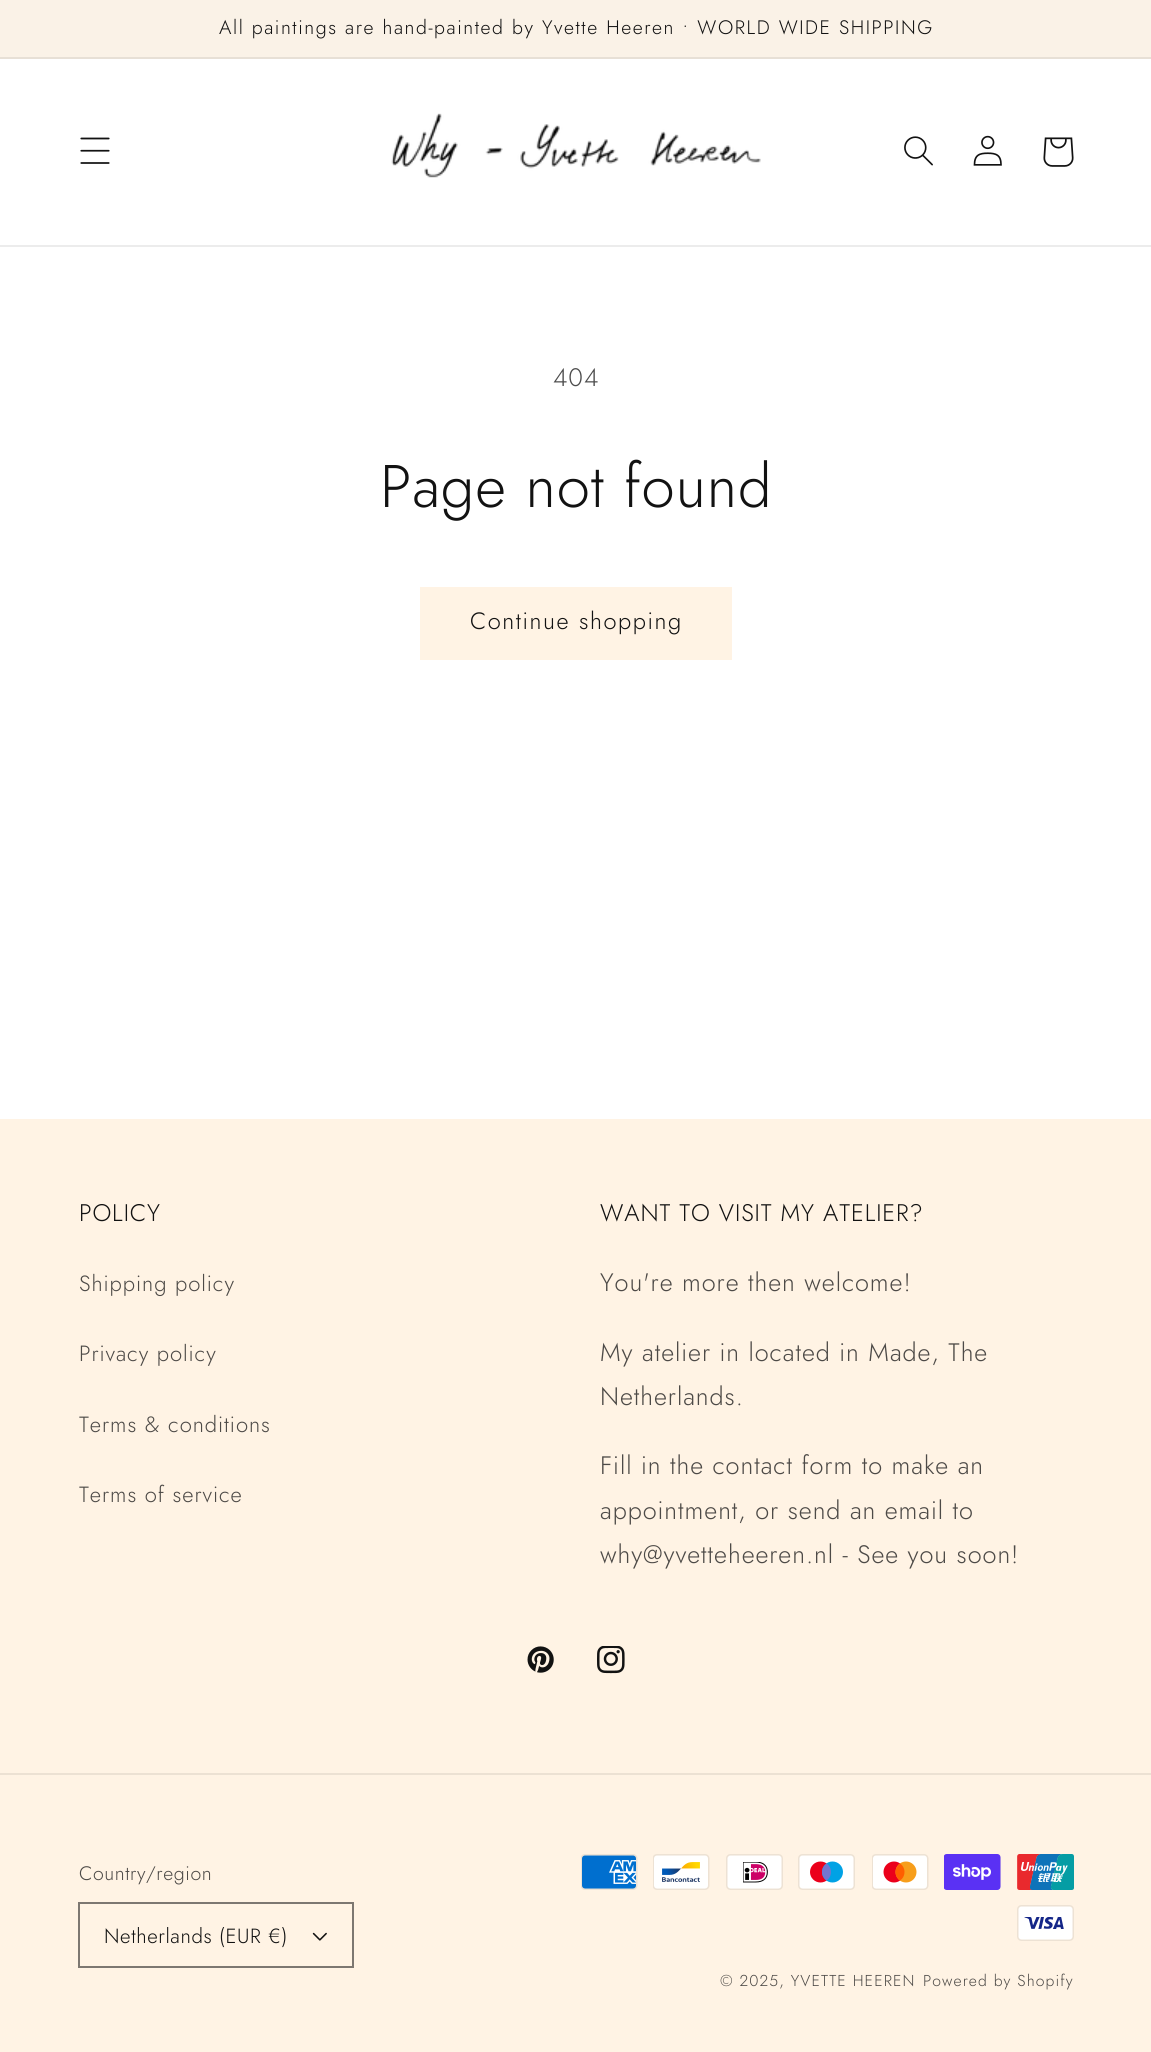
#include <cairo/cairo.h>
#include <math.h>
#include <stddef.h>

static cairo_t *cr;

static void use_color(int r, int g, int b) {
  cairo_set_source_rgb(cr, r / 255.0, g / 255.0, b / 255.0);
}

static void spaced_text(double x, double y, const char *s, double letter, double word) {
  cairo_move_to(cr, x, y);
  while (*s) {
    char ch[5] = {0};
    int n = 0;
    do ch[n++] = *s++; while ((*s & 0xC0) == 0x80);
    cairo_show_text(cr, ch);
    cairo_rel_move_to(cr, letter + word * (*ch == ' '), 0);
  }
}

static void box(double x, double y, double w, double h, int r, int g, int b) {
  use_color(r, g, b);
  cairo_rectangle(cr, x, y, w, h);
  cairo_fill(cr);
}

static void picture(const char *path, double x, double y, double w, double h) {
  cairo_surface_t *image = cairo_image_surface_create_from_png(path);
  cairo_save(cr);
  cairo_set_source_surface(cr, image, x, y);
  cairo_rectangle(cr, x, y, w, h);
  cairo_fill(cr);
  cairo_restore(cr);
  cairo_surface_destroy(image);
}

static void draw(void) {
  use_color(255, 255, 255);
  cairo_paint(cr);
  box(0, 0, 1151, 57, 250, 242, 231);
  box(0, 57, 1151, 2, 231, 224, 214);
  box(0, 245, 1151, 2, 236, 236, 236);
  picture("img_01.png", 80, 137, 30, 27);
  picture("img_02.png", 391, 113, 370, 65);
  picture("img_03.png", 904, 136, 29, 30);
  picture("img_04.png", 973, 135, 29, 31);
  picture("img_05.png", 1043, 137, 31, 30);
  cairo_rectangle(cr, 421, 588, 310, 71);
  use_color(255, 243, 228);
  cairo_stroke(cr);
  box(422, 589, 308, 69, 255, 243, 228);
  box(0, 1119, 1151, 933, 255, 243, 228);
  picture("img_06.png", 527, 1646, 27, 27);
  picture("img_07.png", 597, 1646, 28, 28);
  box(0, 1773, 1151, 2, 236, 225, 211);
  cairo_rectangle(cr, 79, 1903, 274, 64);
  use_color(125, 119, 113);
  cairo_stroke(cr);
  picture("img_08.png", 312, 1932, 15, 9);
  picture("img_09.png", 581, 1854, 57, 36);
  picture("img_10.png", 653, 1854, 57, 36);
  picture("img_11.png", 726, 1854, 57, 36);
  picture("img_12.png", 798, 1854, 57, 36);
  picture("img_13.png", 872, 1854, 57, 36);
  picture("img_14.png", 944, 1854, 57, 36);
  picture("img_15.png", 1017, 1854, 57, 36);
  picture("img_16.png", 1017, 1905, 57, 36);
  cairo_select_font_face(cr, "Jost Light", CAIRO_FONT_SLANT_NORMAL, CAIRO_FONT_WEIGHT_NORMAL);
  cairo_set_font_size(cr, 19.5);
  use_color(18, 18, 18);
  spaced_text(219, 34, "All paintings are hand-painted by Yvette Heeren • WORLD WIDE SHIPPING", 1.58, 0);
  cairo_set_font_size(cr, 25.25);
  use_color(77, 77, 77);
  spaced_text(553, 386, "404", 0.95, 0);
  cairo_set_font_size(cr, 60);
  use_color(18, 18, 18);
  spaced_text(380, 507, "Page not found", 0.9, 0);
  cairo_set_font_size(cr, 23.6);
  spaced_text(470, 629, "Continue shopping", 1.58, 0);
  cairo_set_font_size(cr, 24);
  spaced_text(79, 1221, "POLICY", 0.9, 0);
  cairo_set_font_size(cr, 22);
  use_color(77, 74, 71);
  spaced_text(79, 1291, "Shipping policy", 0.95, 0);
  spaced_text(79, 1361, "Privacy policy", 0.95, 0);
  spaced_text(79, 1432, "Terms & conditions", 0.95, 0);
  spaced_text(79, 1502, "Terms of service", 0.95, 0);
  cairo_set_font_size(cr, 24);
  use_color(18, 18, 18);
  spaced_text(600, 1221, "WANT TO VISIT MY ATELIER?", 0.9, 0);
  cairo_set_font_size(cr, 25.25);
  use_color(77, 74, 71);
  spaced_text(600, 1291, "You're more then welcome!", 0.95, 0);
  spaced_text(600, 1361, "My atelier in located in Made, The", 0.95, 0);
  spaced_text(600, 1405, "Netherlands.", 0.95, 0);
  spaced_text(600, 1474, "Fill in the contact form to make an", 0.95, 0);
  spaced_text(600, 1519, "appointment, or send an email to", 0.95, 0);
  spaced_text(600, 1563, "why@yvetteheeren.nl - See you soon!", 0.95, 0);
  cairo_set_font_size(cr, 19.5);
  spaced_text(79, 1880, "Country/region", 0.6, 0);
  cairo_set_font_size(cr, 20.5);
  use_color(18, 18, 18);
  spaced_text(104, 1943, "Netherlands (EUR €)", 0.6, 0);
  cairo_set_font_size(cr, 15.75);
  use_color(77, 74, 71);
  spaced_text(720, 1986, "© 2025, YVETTE HEEREN", 1.1, 0);
  spaced_text(923, 1986, "Powered by Shopify", 1.1, 0);
}

int main(void) {
  cairo_surface_t *surface = cairo_image_surface_create(CAIRO_FORMAT_RGB24, 1151, 2052);
  cr = cairo_create(surface);
  cairo_font_options_t *options = cairo_font_options_create();
  cairo_font_options_set_hint_metrics(options, CAIRO_HINT_METRICS_OFF);
  cairo_font_options_set_hint_style(options, CAIRO_HINT_STYLE_NONE);
  cairo_set_font_options(cr, options);
  cairo_set_miter_limit(cr, 4);
  draw();
  cairo_surface_write_to_png(surface, "out.png");
  cairo_font_options_destroy(options);
  cairo_destroy(cr);
  cairo_surface_destroy(surface);
  return 0;
}
